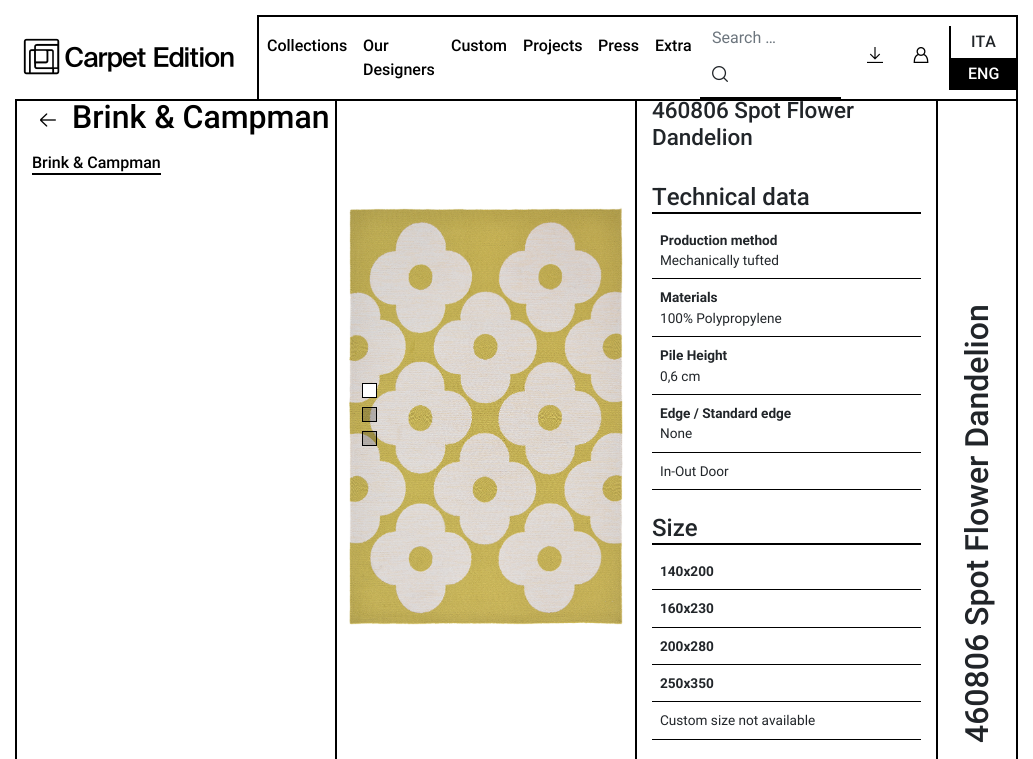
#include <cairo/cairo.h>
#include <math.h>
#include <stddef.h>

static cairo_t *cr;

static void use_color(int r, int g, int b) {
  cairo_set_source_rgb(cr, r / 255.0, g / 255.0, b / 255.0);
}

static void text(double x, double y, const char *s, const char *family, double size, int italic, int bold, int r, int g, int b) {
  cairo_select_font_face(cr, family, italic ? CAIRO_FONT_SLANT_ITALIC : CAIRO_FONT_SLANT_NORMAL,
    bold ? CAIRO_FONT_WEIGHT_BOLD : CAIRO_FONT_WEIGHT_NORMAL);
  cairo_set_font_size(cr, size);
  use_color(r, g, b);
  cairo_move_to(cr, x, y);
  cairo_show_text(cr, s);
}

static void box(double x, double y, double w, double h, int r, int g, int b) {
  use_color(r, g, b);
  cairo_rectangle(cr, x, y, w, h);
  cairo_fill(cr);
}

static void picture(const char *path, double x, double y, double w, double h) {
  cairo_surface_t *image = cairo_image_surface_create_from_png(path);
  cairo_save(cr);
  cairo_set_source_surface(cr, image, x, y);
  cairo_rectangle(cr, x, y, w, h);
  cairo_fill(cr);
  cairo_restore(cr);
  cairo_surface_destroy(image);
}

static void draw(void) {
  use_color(255, 255, 255);
  cairo_paint(cr);
  cairo_rectangle(cr, 16, 81, 1001, 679);
  use_color(0, 0, 0);
  cairo_stroke(cr);
  box(15, 80, 1003, 19, 255, 255, 255);
  box(15, 99, 1003, 2, 0, 0, 0);
  picture("img_01.png", 23, 38, 211, 37);
  box(257, 15, 761, 2, 0, 0, 0);
  box(1016, 15, 2, 84, 0, 0, 0);
  box(257, 15, 2, 84, 0, 0, 0);
  box(700, 97, 141, 2, 0, 0, 0);
  picture("img_02.png", 712, 66, 16, 16);
  picture("img_03.png", 867, 47, 16, 16);
  picture("img_04.png", 913, 47, 16, 16);
  box(949, 26, 2, 64, 0, 0, 0);
  box(951, 58, 65, 32, 0, 0, 0);
  box(335, 101, 2, 658, 0, 0, 0);
  picture("img_05.png", 40, 113, 16, 14);
  box(32, 173, 129, 2, 0, 0, 0);
  box(635, 101, 2, 658, 0, 0, 0);
  picture("img_06.png", 349, 207, 274, 418);
  use_color(255, 255, 255);
  cairo_rectangle(cr, 362.5, 383.5, 14, 14);
  cairo_fill_preserve(cr);
  use_color(0, 0, 0);
  cairo_set_line_width(cr, 1);
  cairo_stroke(cr);
  cairo_set_source_rgba(cr, 0, 0, 0, 0.2);
  cairo_rectangle(cr, 362.5, 407.5, 14, 14);
  cairo_fill_preserve(cr);
  use_color(0, 0, 0);
  cairo_stroke(cr);
  cairo_set_source_rgba(cr, 0, 0, 0, 0.2);
  cairo_rectangle(cr, 362.5, 431.5, 14, 14);
  cairo_fill_preserve(cr);
  use_color(0, 0, 0);
  cairo_stroke(cr);
  box(652, 212, 269, 2, 0, 0, 0);
  box(652, 278, 269, 1, 0, 0, 0);
  box(652, 336, 269, 1, 0, 0, 0);
  box(652, 394, 269, 1, 0, 0, 0);
  box(652, 452, 269, 1, 0, 0, 0);
  box(652, 489, 269, 1, 0, 0, 0);
  box(652, 543, 269, 2, 0, 0, 0);
  box(652, 589, 269, 1, 0, 0, 0);
  box(652, 627, 269, 1, 0, 0, 0);
  box(652, 664, 269, 1, 0, 0, 0);
  box(652, 701, 269, 1, 0, 0, 0);
  box(652, 739, 269, 1, 0, 0, 0);
  box(936, 101, 2, 658, 0, 0, 0);
  text(267, 51, "Collections", "Roboto Medium", 16, 0, 0, 0, 0, 0);
  text(363, 51, "Our", "Roboto Medium", 16, 0, 0, 0, 0, 0);
  text(363, 75, "Designers", "Roboto Medium", 16, 0, 0, 0, 0, 0);
  text(451, 51, "Custom", "Roboto Medium", 16, 0, 0, 0, 0, 0);
  text(523, 51, "Projects", "Roboto Medium", 16, 0, 0, 0, 0, 0);
  text(598, 51, "Press", "Roboto Medium", 16, 0, 0, 0, 0, 0);
  text(655, 51, "Extra", "Roboto Medium", 16, 0, 0, 0, 0, 0);
  text(712, 43, "Search …", "Roboto", 16, 0, 0, 108, 117, 125);
  text(971, 47, "ITA", "Roboto Medium", 16, 0, 0, 33, 37, 41);
  text(968, 79, "ENG", "Roboto Medium", 16, 0, 0, 255, 255, 255);
  text(72, 128, "Brink & Campman", "Roboto Medium", 32, 0, 0, 0, 0, 0);
  text(32, 168, "Brink & Campman", "Roboto Medium", 16, 0, 0, 0, 0, 0);
  text(652, 118, "460806 Spot Flower", "Roboto Medium", 22.5, 0, 0, 33, 37, 41);
  text(652, 145, "Dandelion", "Roboto Medium", 22.5, 0, 0, 33, 37, 41);
  text(652, 205, "Technical data", "Roboto Medium", 24, 0, 0, 33, 37, 41);
  text(660, 245, "Production method", "Roboto", 13.6, 0, 1, 33, 37, 41);
  text(660, 265, "Mechanically tufted", "Roboto", 13.6, 0, 0, 33, 37, 41);
  text(660, 302, "Materials", "Roboto", 13.6, 0, 1, 33, 37, 41);
  text(660, 323, "100% Polypropylene", "Roboto", 13.6, 0, 0, 33, 37, 41);
  text(660, 360, "Pile Height", "Roboto", 13.6, 0, 1, 33, 37, 41);
  text(660, 381, "0,6 cm", "Roboto", 13.6, 0, 0, 33, 37, 41);
  text(660, 418, "Edge / Standard edge", "Roboto", 13.6, 0, 1, 33, 37, 41);
  text(660, 438, "None", "Roboto", 13.6, 0, 0, 33, 37, 41);
  text(660, 476, "In-Out Door", "Roboto", 13.6, 0, 0, 33, 37, 41);
  text(652, 536, "Size", "Roboto Medium", 24, 0, 0, 33, 37, 41);
  text(660, 576, "140x200", "Roboto", 13.6, 0, 1, 33, 37, 41);
  text(660, 613, "160x230", "Roboto", 13.6, 0, 1, 33, 37, 41);
  text(660, 651, "200x280", "Roboto", 13.6, 0, 1, 33, 37, 41);
  text(660, 688, "250x350", "Roboto", 13.6, 0, 1, 33, 37, 41);
  text(660, 725, "Custom size not available", "Roboto", 13.6, 0, 0, 33, 37, 41);
  cairo_save(cr);
  cairo_translate(cr, 988, 743);
  cairo_rotate(cr, -90 * M_PI / 180);
  text(0, 0, "460806 Spot Flower Dandelion", "Roboto Medium", 32, 0, 0, 33, 37, 41);
  cairo_restore(cr);
}

int main(void) {
  cairo_surface_t *surface = cairo_image_surface_create(CAIRO_FORMAT_RGB24, 1033, 759);
  cr = cairo_create(surface);
  cairo_font_options_t *options = cairo_font_options_create();
  cairo_font_options_set_hint_metrics(options, CAIRO_HINT_METRICS_OFF);
  cairo_font_options_set_hint_style(options, CAIRO_HINT_STYLE_NONE);
  cairo_set_font_options(cr, options);
  cairo_set_miter_limit(cr, 4);
  draw();
  cairo_surface_write_to_png(surface, "out.png");
  cairo_font_options_destroy(options);
  cairo_destroy(cr);
  cairo_surface_destroy(surface);
  return 0;
}
